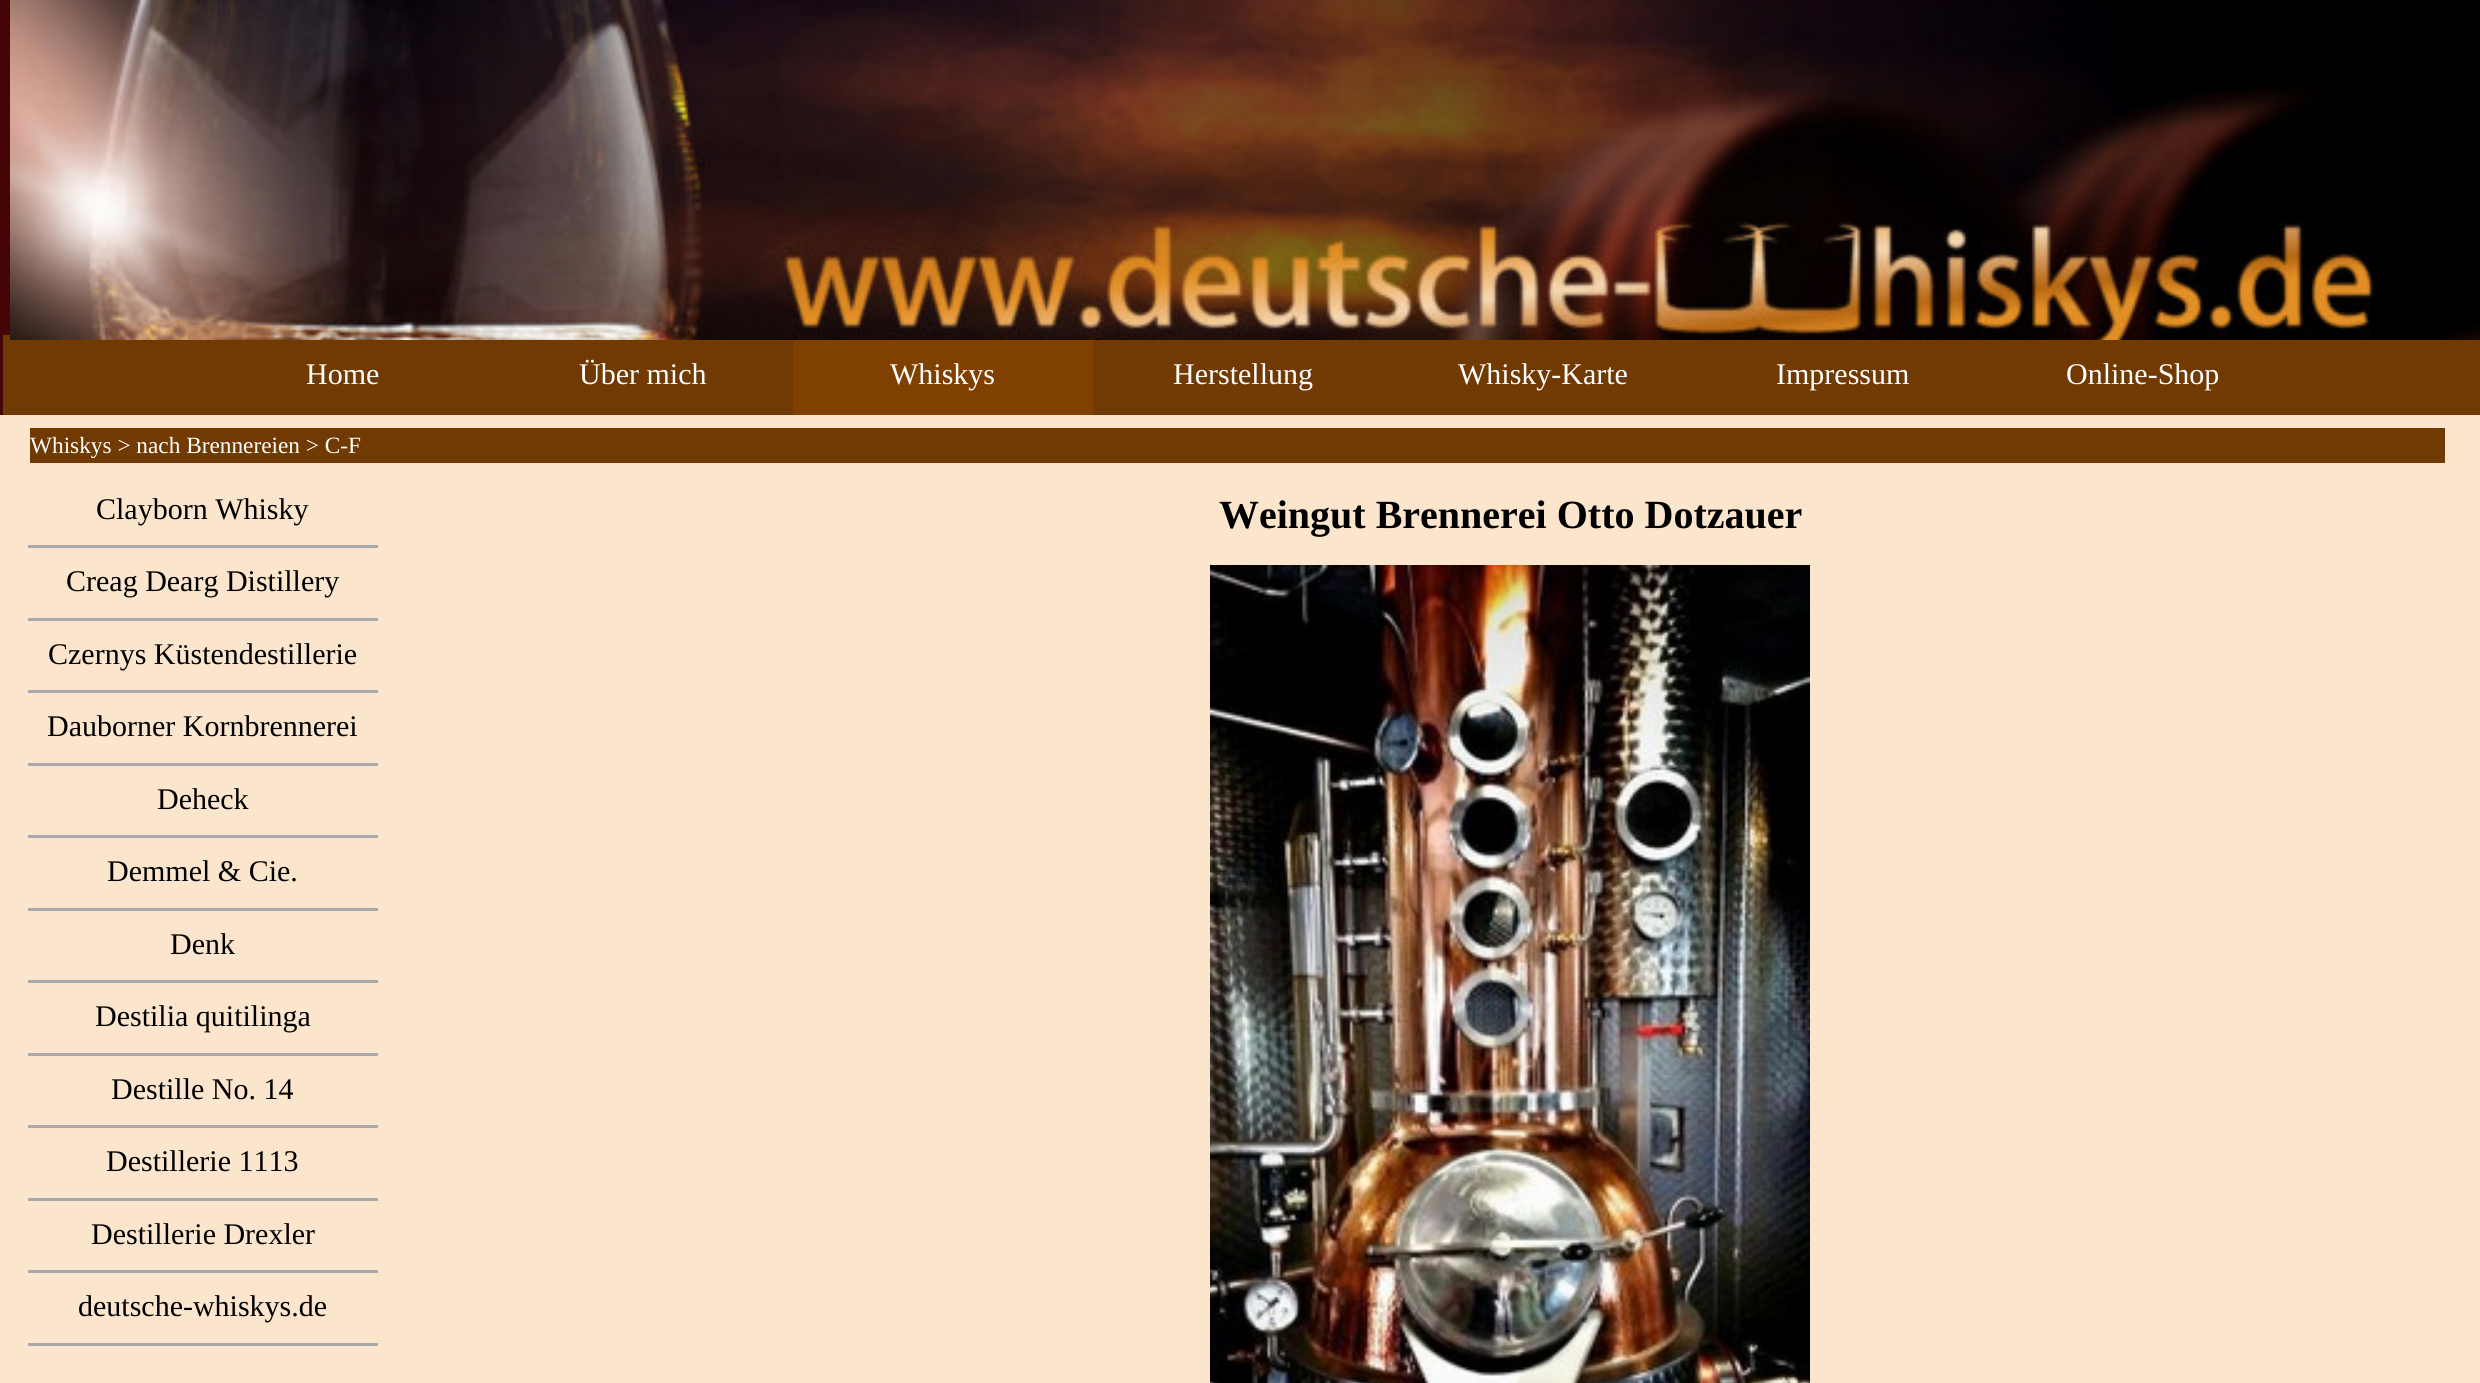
#include <cairo/cairo.h>
#include <math.h>
#include <stddef.h>

static cairo_t *cr;

static void use_color(int r, int g, int b) {
  cairo_set_source_rgb(cr, r / 255.0, g / 255.0, b / 255.0);
}

static void text(double x, double y, const char *s, const char *family, double size, int italic, int bold, int r, int g, int b) {
  cairo_select_font_face(cr, family, italic ? CAIRO_FONT_SLANT_ITALIC : CAIRO_FONT_SLANT_NORMAL,
    bold ? CAIRO_FONT_WEIGHT_BOLD : CAIRO_FONT_WEIGHT_NORMAL);
  cairo_set_font_size(cr, size);
  use_color(r, g, b);
  cairo_move_to(cr, x, y);
  cairo_show_text(cr, s);
}

static void box(double x, double y, double w, double h, int r, int g, int b) {
  use_color(r, g, b);
  cairo_rectangle(cr, x, y, w, h);
  cairo_fill(cr);
}

static void picture(const char *path, double x, double y, double w, double h) {
  cairo_surface_t *image = cairo_image_surface_create_from_png(path);
  cairo_save(cr);
  cairo_set_source_surface(cr, image, x, y);
  cairo_rectangle(cr, x, y, w, h);
  cairo_fill(cr);
  cairo_restore(cr);
  cairo_surface_destroy(image);
}

static void draw(void) {
  use_color(255, 255, 255);
  cairo_paint(cr);
  picture("img_01.png", 0, 0, 10, 415);
  box(3, 335, 2477, 80, 114, 58, 3);
  picture("img_02.png", 10, 0, 2470, 340);
  box(793, 340, 300, 75, 128, 64, 0);
  box(0, 415, 2480, 968, 252, 229, 205);
  box(30, 428, 2415, 35, 114, 58, 3);
  box(28, 545, 350, 3, 169, 169, 169);
  box(28, 618, 350, 3, 169, 169, 169);
  box(28, 690, 350, 3, 169, 169, 169);
  box(28, 763, 350, 3, 169, 169, 169);
  box(28, 835, 350, 3, 169, 169, 169);
  box(28, 908, 350, 3, 169, 169, 169);
  box(28, 980, 350, 3, 169, 169, 169);
  box(28, 1053, 350, 3, 169, 169, 169);
  box(28, 1125, 350, 3, 169, 169, 169);
  box(28, 1198, 350, 3, 169, 169, 169);
  box(28, 1270, 350, 3, 169, 169, 169);
  box(28, 1343, 350, 3, 169, 169, 169);
  picture("img_03.png", 1210, 565, 600, 818);
  text(306, 384, "Home", "Liberation Serif", 30, 0, 0, 255, 255, 255);
  text(579, 384, "Über mich", "Liberation Serif", 30, 0, 0, 255, 255, 255);
  text(890, 384, "Whiskys", "Liberation Serif", 30, 0, 0, 255, 255, 255);
  text(1173, 384, "Herstellung", "Liberation Serif", 30, 0, 0, 255, 255, 255);
  text(1458, 384, "Whisky-Karte", "Liberation Serif", 30, 0, 0, 255, 255, 255);
  text(1776, 384, "Impressum", "Liberation Serif", 30, 0, 0, 255, 255, 255);
  text(2066, 384, "Online-Shop", "Liberation Serif", 30, 0, 0, 255, 255, 255);
  text(30, 453, "Whiskys > nach Brennereien > C-F", "Liberation Serif", 23.3, 0, 0, 255, 255, 255);
  text(96, 519, "Clayborn Whisky", "Liberation Serif", 30, 0, 0, 0, 0, 0);
  text(66, 591, "Creag Dearg Distillery", "Liberation Serif", 30, 0, 0, 0, 0, 0);
  text(48, 664, "Czernys Küstendestillerie", "Liberation Serif", 30, 0, 0, 0, 0, 0);
  text(47, 736, "Dauborner Kornbrennerei", "Liberation Serif", 30, 0, 0, 0, 0, 0);
  text(157, 809, "Deheck", "Liberation Serif", 30, 0, 0, 0, 0, 0);
  text(107, 881, "Demmel & Cie.", "Liberation Serif", 30, 0, 0, 0, 0, 0);
  text(170, 954, "Denk", "Liberation Serif", 30, 0, 0, 0, 0, 0);
  text(95, 1026, "Destilia quitilinga", "Liberation Serif", 30, 0, 0, 0, 0, 0);
  text(111, 1099, "Destille No. 14", "Liberation Serif", 30, 0, 0, 0, 0, 0);
  text(106, 1171, "Destillerie 1113", "Liberation Serif", 30, 0, 0, 0, 0, 0);
  text(91, 1244, "Destillerie Drexler", "Liberation Serif", 30, 0, 0, 0, 0, 0);
  text(78, 1316, "deutsche-whiskys.de", "Liberation Serif", 30, 0, 0, 0, 0, 0);
  text(1219, 528, "Weingut Brennerei Otto Dotzauer", "Liberation Serif", 40, 0, 1, 0, 0, 0);
}

int main(void) {
  cairo_surface_t *surface = cairo_image_surface_create(CAIRO_FORMAT_RGB24, 2480, 1383);
  cr = cairo_create(surface);
  cairo_font_options_t *options = cairo_font_options_create();
  cairo_font_options_set_hint_metrics(options, CAIRO_HINT_METRICS_OFF);
  cairo_font_options_set_hint_style(options, CAIRO_HINT_STYLE_NONE);
  cairo_set_font_options(cr, options);
  cairo_set_miter_limit(cr, 4);
  draw();
  cairo_surface_write_to_png(surface, "out.png");
  cairo_font_options_destroy(options);
  cairo_destroy(cr);
  cairo_surface_destroy(surface);
  return 0;
}
